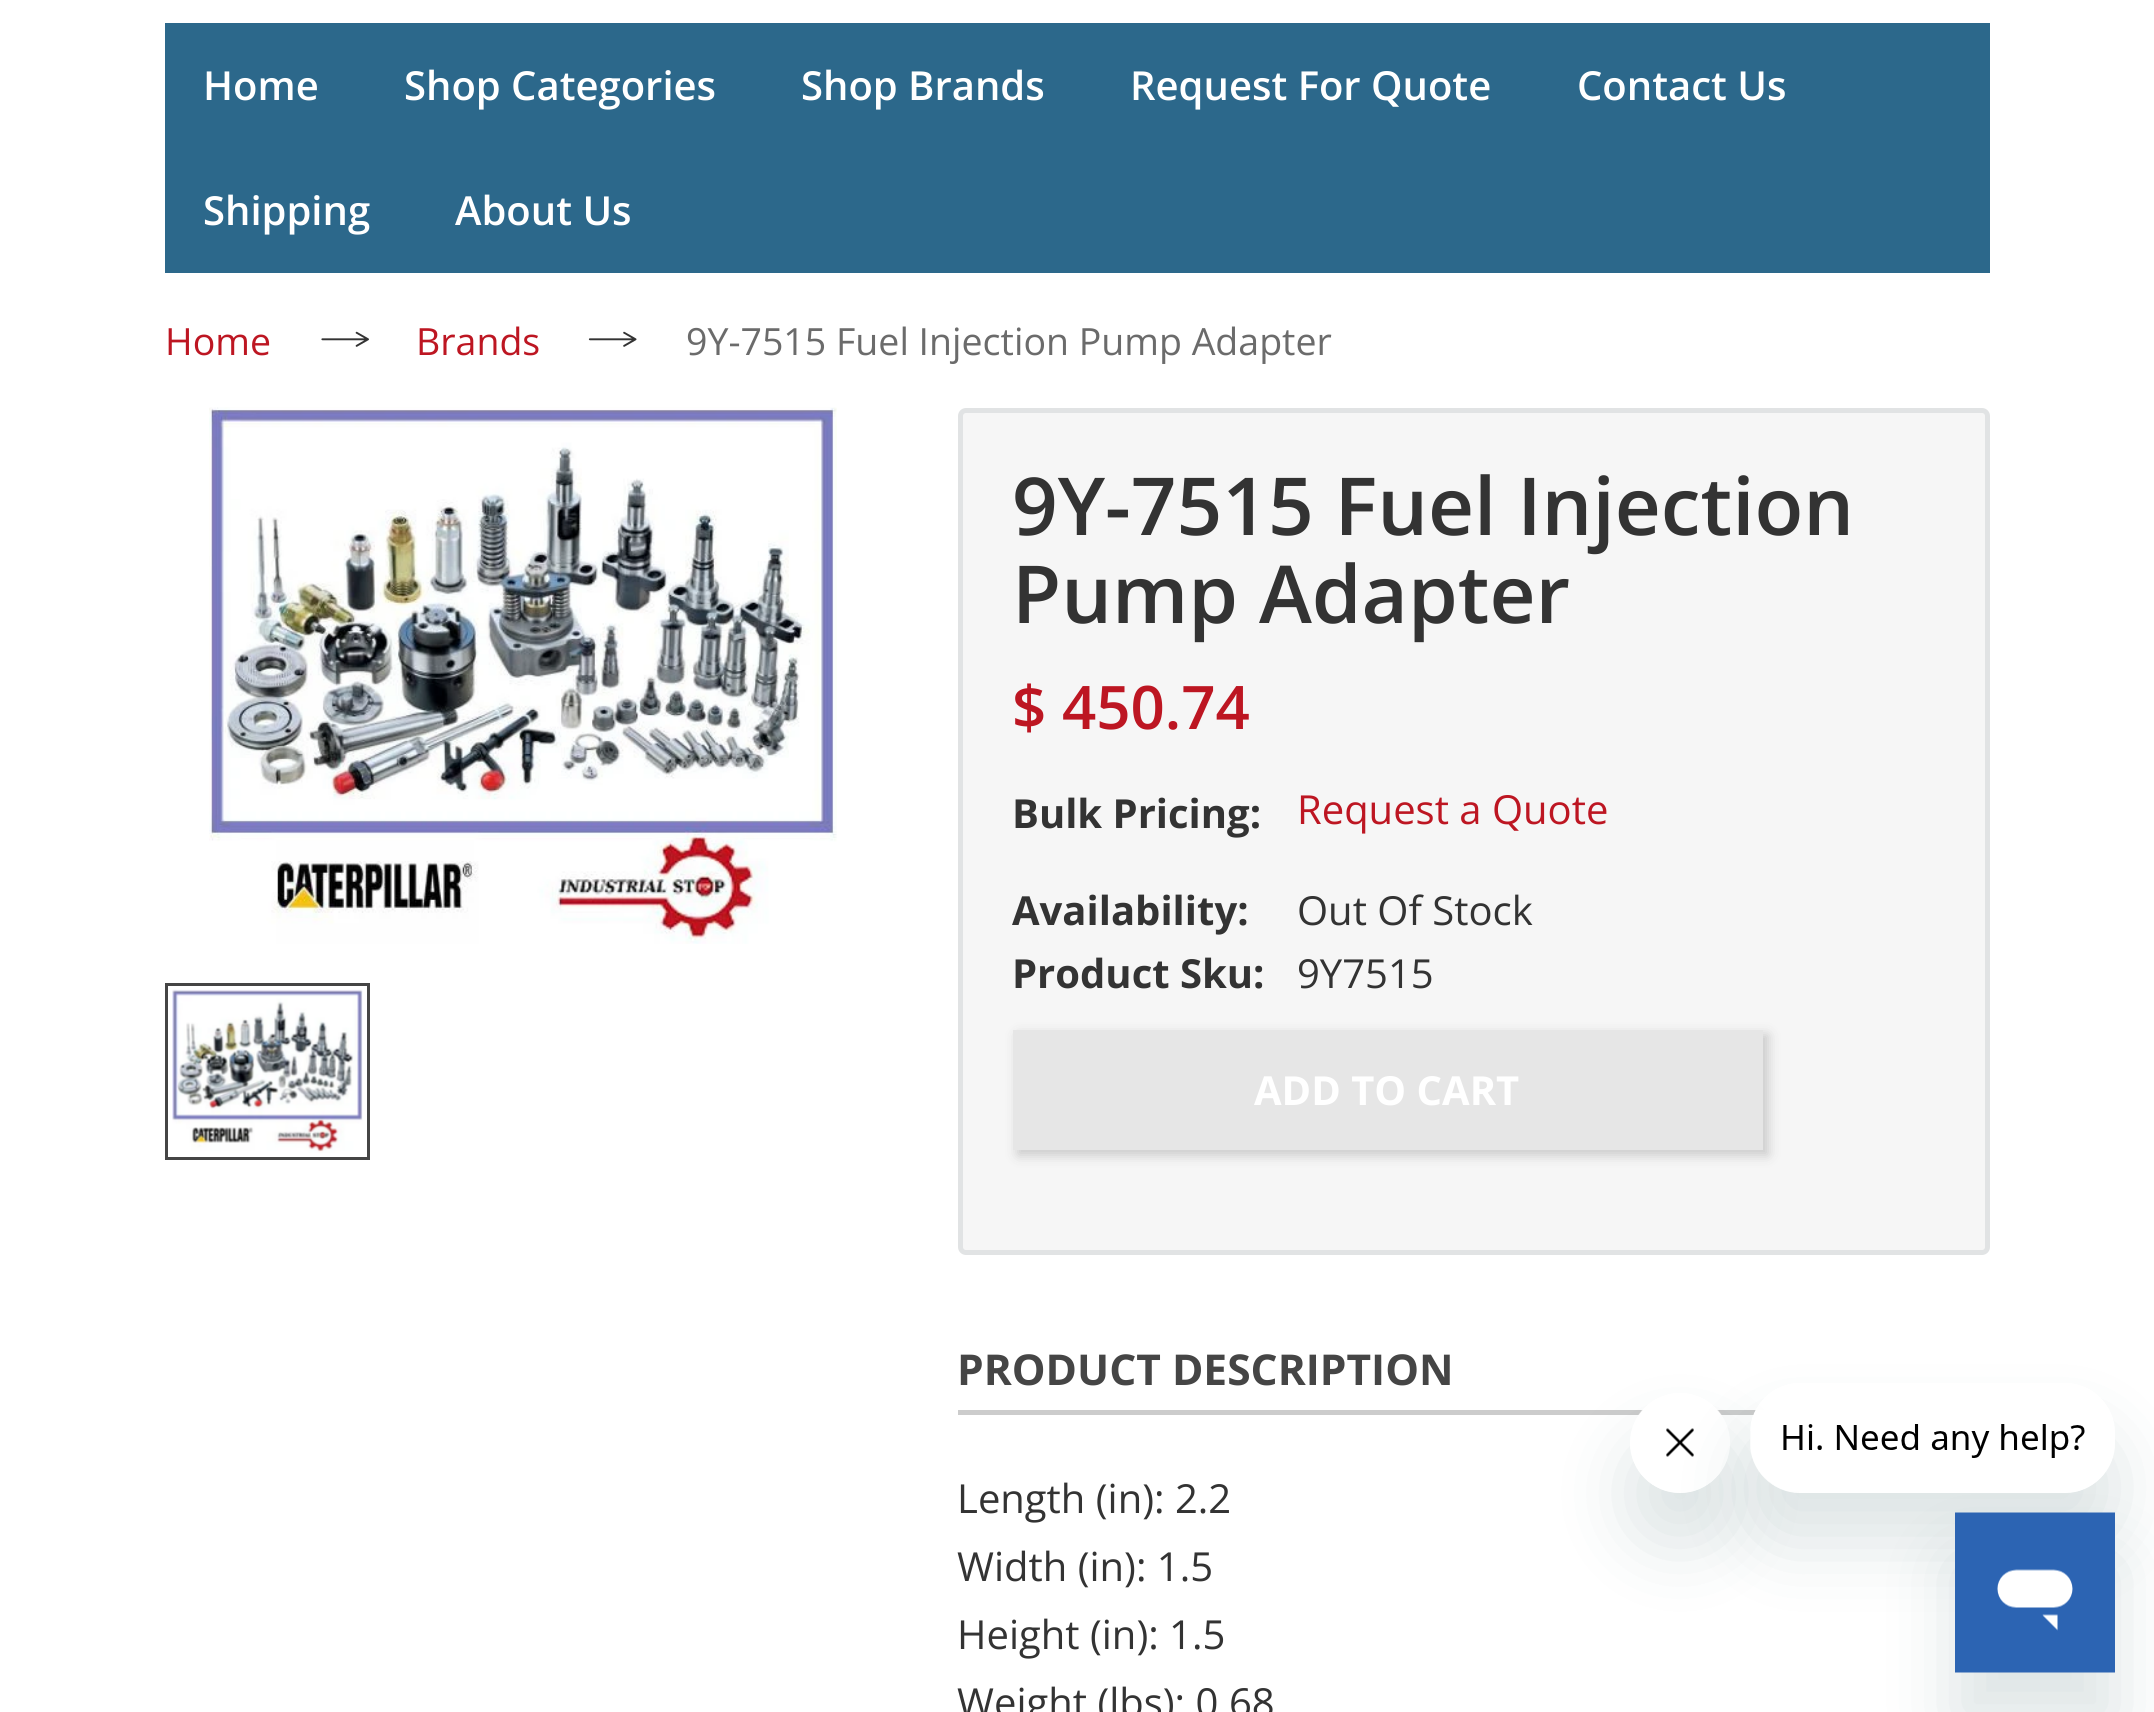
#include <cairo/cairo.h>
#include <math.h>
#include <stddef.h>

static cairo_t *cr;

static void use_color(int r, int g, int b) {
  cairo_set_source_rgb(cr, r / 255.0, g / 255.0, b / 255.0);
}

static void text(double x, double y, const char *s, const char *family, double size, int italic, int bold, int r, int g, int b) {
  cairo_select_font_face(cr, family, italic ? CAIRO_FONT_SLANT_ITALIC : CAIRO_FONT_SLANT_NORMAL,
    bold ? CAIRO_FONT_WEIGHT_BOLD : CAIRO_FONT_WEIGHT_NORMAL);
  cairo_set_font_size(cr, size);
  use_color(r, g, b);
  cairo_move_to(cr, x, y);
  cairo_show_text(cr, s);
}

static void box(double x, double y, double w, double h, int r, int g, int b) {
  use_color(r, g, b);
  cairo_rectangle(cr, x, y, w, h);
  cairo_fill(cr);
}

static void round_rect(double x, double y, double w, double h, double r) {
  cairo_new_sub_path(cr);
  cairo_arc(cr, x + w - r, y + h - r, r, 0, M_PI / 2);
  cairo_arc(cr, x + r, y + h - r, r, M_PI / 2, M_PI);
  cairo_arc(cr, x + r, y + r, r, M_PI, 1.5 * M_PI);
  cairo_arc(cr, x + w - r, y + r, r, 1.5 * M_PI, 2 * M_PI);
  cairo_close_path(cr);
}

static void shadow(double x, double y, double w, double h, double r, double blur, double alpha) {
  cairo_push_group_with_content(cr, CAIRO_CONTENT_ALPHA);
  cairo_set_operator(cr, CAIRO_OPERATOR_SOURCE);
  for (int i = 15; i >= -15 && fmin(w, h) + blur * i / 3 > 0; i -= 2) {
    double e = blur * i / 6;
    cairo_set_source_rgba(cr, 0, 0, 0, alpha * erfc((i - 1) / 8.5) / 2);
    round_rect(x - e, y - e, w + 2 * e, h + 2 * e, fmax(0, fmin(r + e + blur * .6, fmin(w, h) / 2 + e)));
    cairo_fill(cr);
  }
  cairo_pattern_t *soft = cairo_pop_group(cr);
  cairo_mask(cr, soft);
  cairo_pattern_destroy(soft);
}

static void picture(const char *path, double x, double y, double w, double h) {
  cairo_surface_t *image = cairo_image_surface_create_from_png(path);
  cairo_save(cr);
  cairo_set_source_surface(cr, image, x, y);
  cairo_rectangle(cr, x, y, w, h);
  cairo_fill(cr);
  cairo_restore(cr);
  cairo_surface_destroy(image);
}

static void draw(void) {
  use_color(255, 255, 255);
  cairo_paint(cr);
  box(165, 23, 1825, 250, 44, 104, 139);
  picture("img_01.png", 321, 331, 48, 16);
  picture("img_02.png", 588, 331, 49, 16);
  picture("img_03.png", 209, 407, 628, 537);
  cairo_rectangle(cr, 166.5, 984.5, 202, 174);
  use_color(69, 69, 69);
  cairo_set_line_width(cr, 3);
  cairo_stroke(cr);
  picture("img_04.png", 172, 989, 191, 164);
  use_color(246, 246, 246);
  round_rect(960.5, 410.5, 1027, 842, 5.5);
  cairo_fill_preserve(cr);
  use_color(225, 227, 228);
  cairo_set_line_width(cr, 5);
  cairo_stroke(cr);
  use_color(200, 200, 200);
  shadow(1018, 1035, 750, 120, 0, 6, 1);
  box(1013, 1030, 750, 120, 230, 230, 230);
  box(958, 1410, 798, 5, 204, 204, 204);
  cairo_save(cr);
  cairo_set_fill_rule(cr, CAIRO_FILL_RULE_EVEN_ODD);
  cairo_new_path(cr);
  cairo_move_to(cr, 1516, 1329);
  cairo_line_to(cr, 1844, 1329);
  cairo_line_to(cr, 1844, 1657);
  cairo_line_to(cr, 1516, 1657);
  cairo_close_path(cr);
  cairo_move_to(cr, 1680, 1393);
  cairo_curve_to(cr, 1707.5, 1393, 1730, 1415.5, 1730, 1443);
  cairo_curve_to(cr, 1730, 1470.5, 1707.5, 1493, 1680, 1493);
  cairo_curve_to(cr, 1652.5, 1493, 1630, 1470.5, 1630, 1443);
  cairo_curve_to(cr, 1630, 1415.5, 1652.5, 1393, 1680, 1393);
  cairo_close_path(cr);
  cairo_clip(cr);
  use_color(23, 73, 77);
  shadow(1630, 1443, 100, 100, 50, 37.5, 0.15);
  cairo_restore(cr);
  picture("img_06.png", 1638, 1410, 84, 83);
  cairo_save(cr);
  cairo_set_fill_rule(cr, CAIRO_FILL_RULE_EVEN_ODD);
  cairo_new_path(cr);
  cairo_move_to(cr, 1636, 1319);
  cairo_line_to(cr, 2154, 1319);
  cairo_line_to(cr, 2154, 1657);
  cairo_line_to(cr, 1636, 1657);
  cairo_close_path(cr);
  cairo_move_to(cr, 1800, 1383);
  cairo_line_to(cr, 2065, 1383);
  cairo_curve_to(cr, 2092.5, 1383, 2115, 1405.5, 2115, 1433);
  cairo_line_to(cr, 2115, 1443);
  cairo_curve_to(cr, 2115, 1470.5, 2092.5, 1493, 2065, 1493);
  cairo_line_to(cr, 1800, 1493);
  cairo_curve_to(cr, 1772.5, 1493, 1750, 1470.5, 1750, 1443);
  cairo_line_to(cr, 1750, 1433);
  cairo_curve_to(cr, 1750, 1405.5, 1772.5, 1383, 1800, 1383);
  cairo_close_path(cr);
  cairo_clip(cr);
  use_color(23, 73, 77);
  shadow(1750, 1433, 365, 110, 50, 37.5, 0.15);
  cairo_restore(cr);
  picture("img_05.png", 1751, 1410, 334, 81);
  use_color(23, 73, 77);
  shadow(1955, 1563, 160, 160, 0, 37.5, 0.15);
  picture("img_07.png", 1955, 1512, 160, 161);
  text(203, 100, "Home", "Open Sans SemiBold", 40, 0, 0, 255, 255, 255);
  text(404, 100, "Shop Categories", "Open Sans SemiBold", 40, 0, 0, 255, 255, 255);
  text(801, 100, "Shop Brands", "Open Sans SemiBold", 40, 0, 0, 255, 255, 255);
  text(1130, 100, "Request For Quote", "Open Sans SemiBold", 40, 0, 0, 255, 255, 255);
  text(1577, 100, "Contact Us", "Open Sans SemiBold", 40, 0, 0, 255, 255, 255);
  text(203, 225, "Shipping", "Open Sans SemiBold", 40, 0, 0, 255, 255, 255);
  text(455, 225, "About Us", "Open Sans SemiBold", 40, 0, 0, 255, 255, 255);
  text(165, 355, "Home", "Open Sans", 37.5, 0, 0, 189, 22, 34);
  text(416, 355, "Brands", "Open Sans", 37.5, 0, 0, 189, 22, 34);
  text(686, 355, "9Y-7515 Fuel Injection Pump Adapter", "Open Sans", 37.5, 0, 0, 107, 107, 107);
  text(1012, 535, "9Y-7515 Fuel Injection", "Open Sans SemiBold", 80, 0, 0, 51, 51, 51);
  text(1012, 623, "Pump Adapter", "Open Sans SemiBold", 80, 0, 0, 51, 51, 51);
  text(1012, 729, "$ 450.74", "Open Sans SemiBold", 60, 0, 0, 189, 22, 34);
  text(1012, 828, "Bulk Pricing:", "Open Sans", 40, 0, 1, 51, 51, 51);
  text(1297, 824, "Request a Quote", "Open Sans", 40, 0, 0, 189, 22, 34);
  text(1012, 925, "Availability:", "Open Sans", 40, 0, 1, 51, 51, 51);
  text(1297, 925, "Out Of Stock", "Open Sans", 40, 0, 0, 51, 51, 51);
  text(1012, 988, "Product Sku:", "Open Sans", 40, 0, 1, 51, 51, 51);
  text(1297, 988, "9Y7515", "Open Sans", 40, 0, 0, 51, 51, 51);
  text(1254, 1105, "ADD TO CART", "Open Sans", 40, 0, 1, 255, 255, 255);
  text(957, 1385, "PRODUCT DESCRIPTION", "Open Sans", 42.5, 0, 1, 69, 69, 69);
  text(957, 1513, "Length (in): 2.2", "Open Sans", 40, 0, 0, 51, 51, 51);
  text(957, 1581, "Width (in): 1.5", "Open Sans", 40, 0, 0, 51, 51, 51);
  text(957, 1649, "Height (in): 1.5", "Open Sans", 40, 0, 0, 51, 51, 51);
  text(957, 1717, "Weight (lbs): 0.68", "Open Sans", 40, 0, 0, 51, 51, 51);
}

int main(void) {
  cairo_surface_t *surface = cairo_image_surface_create(CAIRO_FORMAT_RGB24, 2154, 1712);
  cr = cairo_create(surface);
  cairo_font_options_t *options = cairo_font_options_create();
  cairo_font_options_set_hint_metrics(options, CAIRO_HINT_METRICS_OFF);
  cairo_font_options_set_hint_style(options, CAIRO_HINT_STYLE_NONE);
  cairo_set_font_options(cr, options);
  cairo_set_miter_limit(cr, 4);
  draw();
  cairo_surface_write_to_png(surface, "out.png");
  cairo_font_options_destroy(options);
  cairo_destroy(cr);
  cairo_surface_destroy(surface);
  return 0;
}
